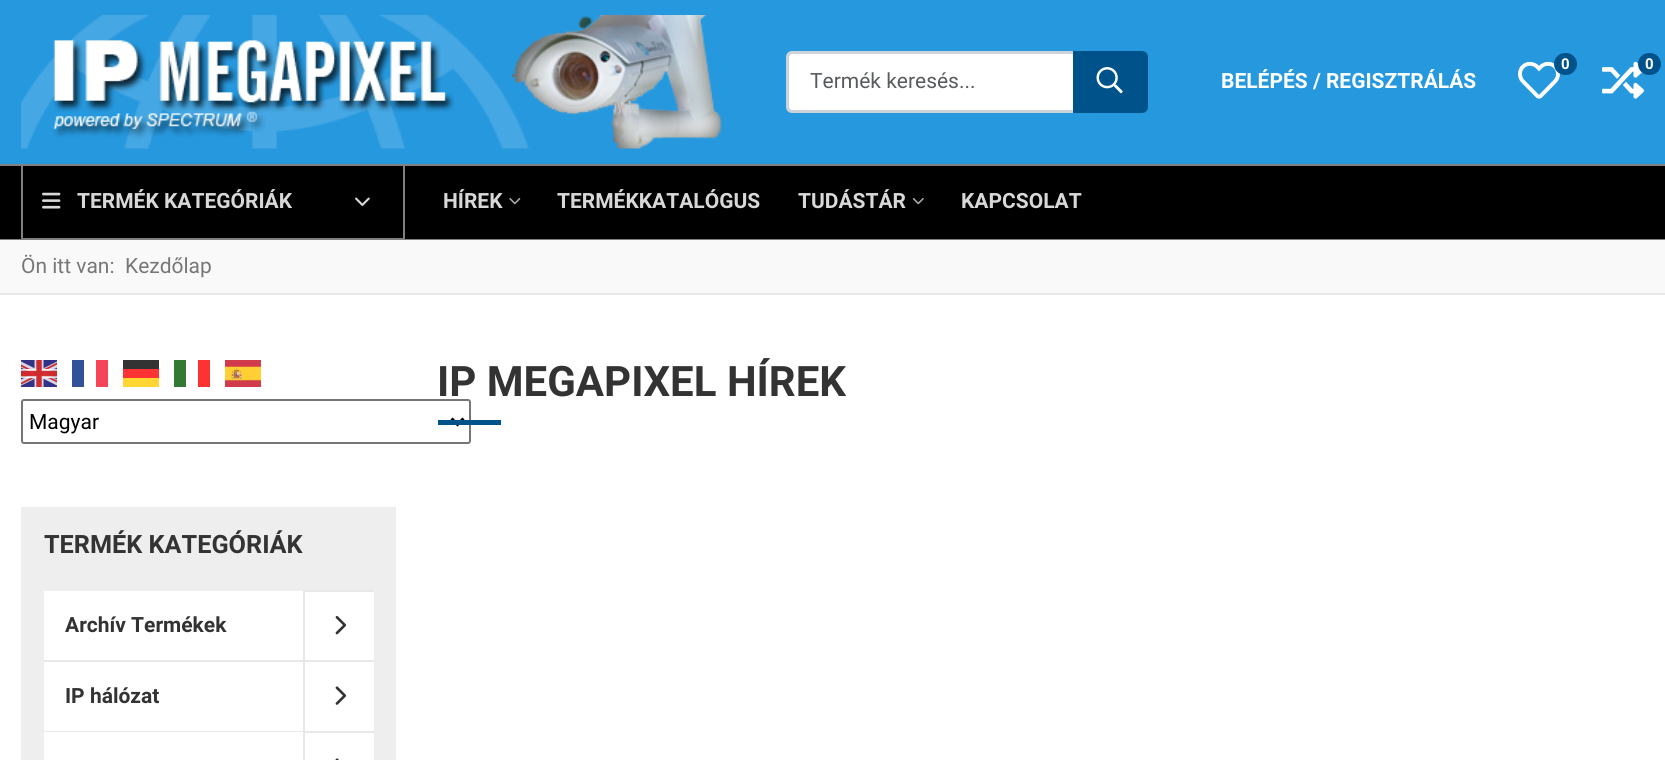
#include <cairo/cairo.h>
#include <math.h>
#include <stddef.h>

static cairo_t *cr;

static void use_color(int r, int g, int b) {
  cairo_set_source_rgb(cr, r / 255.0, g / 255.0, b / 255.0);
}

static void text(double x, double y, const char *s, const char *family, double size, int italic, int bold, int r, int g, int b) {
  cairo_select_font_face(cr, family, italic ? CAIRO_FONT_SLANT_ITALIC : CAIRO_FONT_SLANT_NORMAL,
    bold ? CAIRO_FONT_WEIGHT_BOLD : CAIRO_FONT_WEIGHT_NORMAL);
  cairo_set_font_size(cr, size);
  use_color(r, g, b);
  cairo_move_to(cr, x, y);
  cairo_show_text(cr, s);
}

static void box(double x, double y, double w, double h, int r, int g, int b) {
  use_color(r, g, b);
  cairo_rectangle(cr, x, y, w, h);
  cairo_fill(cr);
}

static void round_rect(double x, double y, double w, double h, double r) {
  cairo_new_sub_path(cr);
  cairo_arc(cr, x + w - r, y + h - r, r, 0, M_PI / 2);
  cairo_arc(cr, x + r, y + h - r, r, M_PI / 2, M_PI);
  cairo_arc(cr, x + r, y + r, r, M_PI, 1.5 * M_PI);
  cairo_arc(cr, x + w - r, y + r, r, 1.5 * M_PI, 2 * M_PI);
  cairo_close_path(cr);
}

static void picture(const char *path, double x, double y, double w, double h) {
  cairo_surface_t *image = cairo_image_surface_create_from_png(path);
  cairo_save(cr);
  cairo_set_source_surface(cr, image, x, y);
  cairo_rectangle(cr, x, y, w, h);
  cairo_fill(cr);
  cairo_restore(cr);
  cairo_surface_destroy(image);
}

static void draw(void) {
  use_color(255, 255, 255);
  cairo_paint(cr);
  box(0, 0, 1665, 164, 38, 152, 222);
  picture("img_01.png", 21, 15, 701, 134);
  use_color(255, 255, 255);
  cairo_new_path(cr);
  cairo_move_to(cr, 791, 54);
  cairo_line_to(cr, 1073, 54);
  cairo_line_to(cr, 1073, 110);
  cairo_line_to(cr, 791, 110);
  cairo_curve_to(cr, 790, 110, 789, 109, 789, 108);
  cairo_line_to(cr, 789, 56);
  cairo_curve_to(cr, 789, 55, 790, 54, 791, 54);
  cairo_close_path(cr);
  cairo_fill(cr);
  cairo_new_path(cr);
  cairo_move_to(cr, 792, 52.5);
  cairo_line_to(cr, 1074.5, 52.5);
  cairo_line_to(cr, 1074.5, 111.5);
  cairo_line_to(cr, 792, 111.5);
  cairo_curve_to(cr, 789.5, 111.5, 787.5, 109.5, 787.5, 107);
  cairo_line_to(cr, 787.5, 57);
  cairo_curve_to(cr, 787.5, 54.5, 789.5, 52.5, 792, 52.5);
  cairo_close_path(cr);
  use_color(205, 211, 217);
  cairo_set_line_width(cr, 3);
  cairo_stroke(cr);
  use_color(0, 83, 138);
  cairo_new_path(cr);
  cairo_move_to(cr, 1074.5, 52.5);
  cairo_line_to(cr, 1142, 52.5);
  cairo_curve_to(cr, 1144.5, 52.5, 1146.5, 54.5, 1146.5, 57);
  cairo_line_to(cr, 1146.5, 107);
  cairo_curve_to(cr, 1146.5, 109.5, 1144.5, 111.5, 1142, 111.5);
  cairo_line_to(cr, 1074.5, 111.5);
  cairo_close_path(cr);
  cairo_fill_preserve(cr);
  cairo_stroke(cr);
  picture("img_02.png", 1096, 67, 27, 27);
  picture("img_03.png", 1518, 61, 42, 38);
  round_rect(1554, 53, 23, 22, 11);
  cairo_fill(cr);
  picture("img_04.png", 1602, 61, 42, 38);
  round_rect(1638, 53, 23, 22, 11);
  cairo_fill(cr);
  box(0, 166, 1665, 73, 0, 0, 0);
  box(0, 164, 1665, 2, 128, 128, 128);
  box(0, 239, 1665, 1, 128, 128, 128);
  cairo_rectangle(cr, 22, 165, 382, 74);
  cairo_set_line_width(cr, 2);
  cairo_stroke(cr);
  picture("img_05.png", 42, 192, 19, 17);
  picture("img_06.png", 355, 197, 15, 9);
  picture("img_07.png", 509, 198, 12, 7);
  picture("img_08.png", 912, 198, 12, 7);
  box(0, 240, 1665, 53, 249, 249, 249);
  box(0, 293, 1665, 2, 232, 232, 232);
  round_rect(22, 400, 448, 43, 2);
  use_color(118, 118, 118);
  cairo_stroke(cr);
  cairo_new_path(cr);
  cairo_move_to(cr, 451.5, 418.5);
  cairo_line_to(cr, 457.5, 424.5);
  cairo_line_to(cr, 463.5, 418.5);
  use_color(0, 0, 0);
  cairo_set_line_width(cr, 3);
  cairo_stroke(cr);
  box(438, 420, 63, 5, 0, 83, 138);
  picture("img_09.png", 21, 360, 36, 27);
  box(72, 360, 12, 27, 51, 81, 153);
  box(96, 360, 12, 27, 245, 70, 89);
  box(123, 360, 36, 9, 51, 51, 51);
  box(174, 360, 12, 27, 51, 121, 51);
  box(198, 360, 12, 27, 253, 51, 51);
  picture("img_10.png", 225, 360, 36, 27);
  box(123, 369, 36, 9, 255, 51, 51);
  box(123, 378, 36, 9, 255, 214, 51);
  box(21, 507, 375, 253, 238, 238, 238);
  box(44, 591, 259, 69, 255, 255, 255);
  box(44, 660, 259, 2, 232, 232, 232);
  box(305, 592, 69, 68, 255, 255, 255);
  box(303, 590, 71, 2, 232, 232, 232);
  box(303, 590, 2, 72, 232, 232, 232);
  picture("img_11.png", 335, 616, 12, 19);
  box(44, 662, 259, 69, 255, 255, 255);
  box(44, 731, 259, 1, 232, 232, 232);
  box(305, 662, 69, 69, 255, 255, 255);
  box(303, 660, 71, 2, 232, 232, 232);
  box(303, 660, 2, 72, 232, 232, 232);
  picture("img_12.png", 335, 686, 12, 19);
  box(44, 732, 259, 28, 255, 255, 255);
  box(305, 733, 69, 27, 255, 255, 255);
  box(303, 731, 71, 2, 232, 232, 232);
  box(303, 731, 2, 29, 232, 232, 232);
  picture("img_13.png", 335, 758, 4, 2);
  text(810, 88, "Termék keresés...", "Roboto", 21, 0, 0, 89, 92, 95);
  text(1561, 69, "0", "Roboto", 15, 0, 1, 255, 255, 255);
  text(1645, 69, "0", "Roboto", 15, 0, 1, 255, 255, 255);
  text(1221, 88, "BELÉPÉS / REGISZTRÁLÁS", "Roboto", 21, 0, 1, 255, 255, 255);
  text(77, 208, "TERMÉK KATEGÓRIÁK", "Roboto", 21, 0, 1, 216, 216, 216);
  text(443, 208, "HÍREK", "Roboto", 21, 0, 1, 216, 216, 216);
  text(557, 208, "TERMÉKKATALÓGUS", "Roboto", 21, 0, 1, 216, 216, 216);
  text(798, 208, "TUDÁSTÁR", "Roboto", 21, 0, 1, 216, 216, 216);
  text(961, 208, "KAPCSOLAT", "Roboto", 21, 0, 1, 216, 216, 216);
  text(21, 273, "Ön itt van:", "Roboto", 21, 0, 0, 119, 119, 119);
  text(125, 273, "Kezdőlap", "Roboto", 21, 0, 0, 119, 119, 119);
  text(437, 396, "IP MEGAPIXEL HÍREK", "Roboto", 42, 0, 1, 51, 51, 51);
  text(29, 429, "Magyar", "Roboto", 21, 0, 0, 0, 0, 0);
  text(44, 553, "TERMÉK KATEGÓRIÁK", "Roboto", 25.25, 0, 1, 51, 51, 51);
  text(65, 632, "Archív Termékek", "Roboto", 21, 0, 1, 51, 51, 51);
  text(65, 703, "IP hálózat", "Roboto", 21, 0, 1, 51, 51, 51);
}

int main(void) {
  cairo_surface_t *surface = cairo_image_surface_create(CAIRO_FORMAT_RGB24, 1665, 760);
  cr = cairo_create(surface);
  cairo_font_options_t *options = cairo_font_options_create();
  cairo_font_options_set_hint_metrics(options, CAIRO_HINT_METRICS_OFF);
  cairo_font_options_set_hint_style(options, CAIRO_HINT_STYLE_NONE);
  cairo_set_font_options(cr, options);
  cairo_set_miter_limit(cr, 4);
  draw();
  cairo_surface_write_to_png(surface, "out.png");
  cairo_font_options_destroy(options);
  cairo_destroy(cr);
  cairo_surface_destroy(surface);
  return 0;
}
